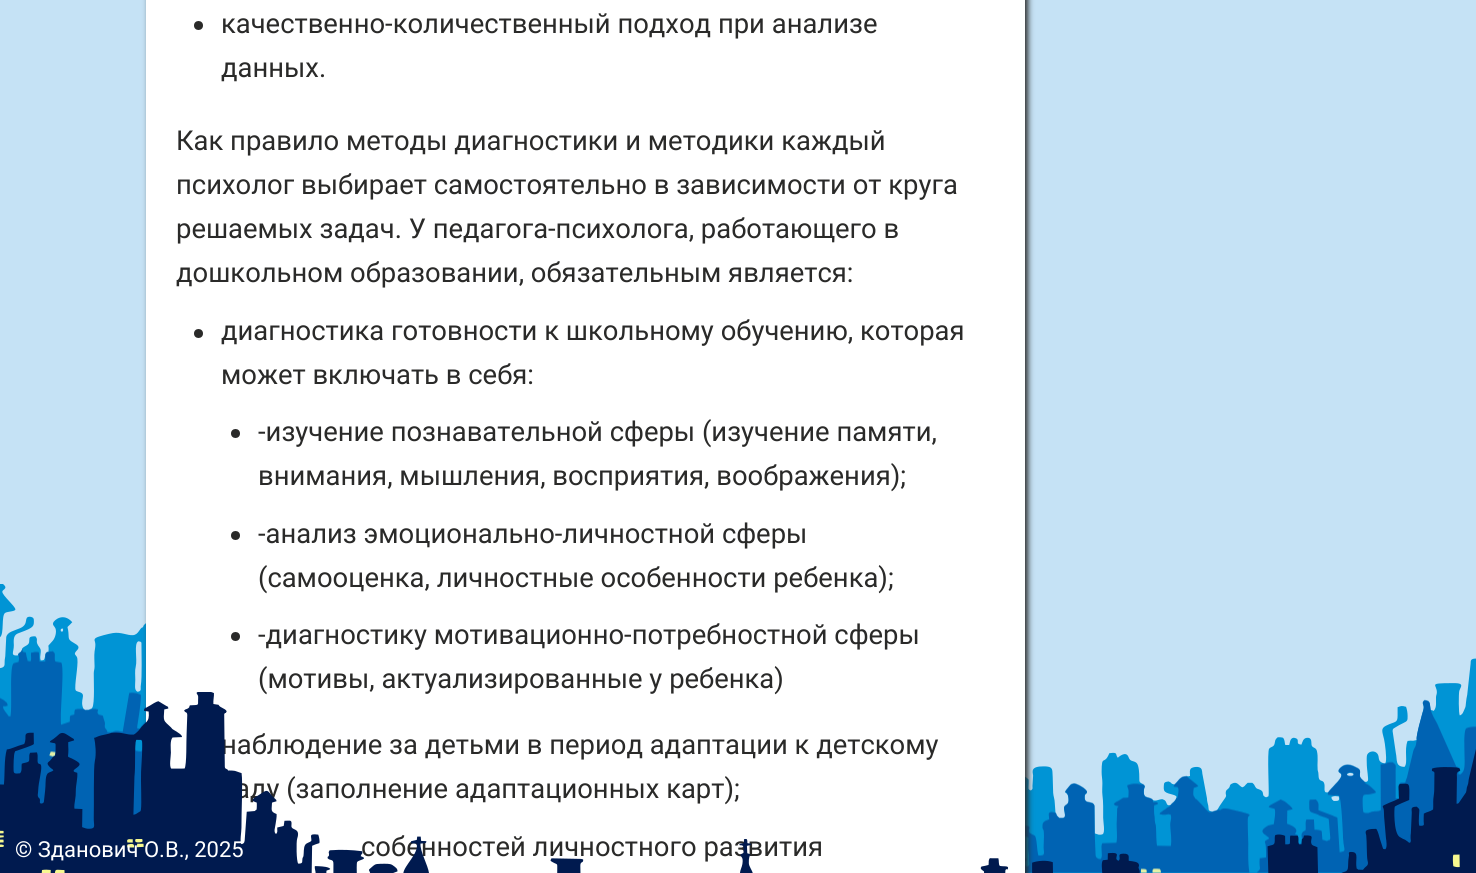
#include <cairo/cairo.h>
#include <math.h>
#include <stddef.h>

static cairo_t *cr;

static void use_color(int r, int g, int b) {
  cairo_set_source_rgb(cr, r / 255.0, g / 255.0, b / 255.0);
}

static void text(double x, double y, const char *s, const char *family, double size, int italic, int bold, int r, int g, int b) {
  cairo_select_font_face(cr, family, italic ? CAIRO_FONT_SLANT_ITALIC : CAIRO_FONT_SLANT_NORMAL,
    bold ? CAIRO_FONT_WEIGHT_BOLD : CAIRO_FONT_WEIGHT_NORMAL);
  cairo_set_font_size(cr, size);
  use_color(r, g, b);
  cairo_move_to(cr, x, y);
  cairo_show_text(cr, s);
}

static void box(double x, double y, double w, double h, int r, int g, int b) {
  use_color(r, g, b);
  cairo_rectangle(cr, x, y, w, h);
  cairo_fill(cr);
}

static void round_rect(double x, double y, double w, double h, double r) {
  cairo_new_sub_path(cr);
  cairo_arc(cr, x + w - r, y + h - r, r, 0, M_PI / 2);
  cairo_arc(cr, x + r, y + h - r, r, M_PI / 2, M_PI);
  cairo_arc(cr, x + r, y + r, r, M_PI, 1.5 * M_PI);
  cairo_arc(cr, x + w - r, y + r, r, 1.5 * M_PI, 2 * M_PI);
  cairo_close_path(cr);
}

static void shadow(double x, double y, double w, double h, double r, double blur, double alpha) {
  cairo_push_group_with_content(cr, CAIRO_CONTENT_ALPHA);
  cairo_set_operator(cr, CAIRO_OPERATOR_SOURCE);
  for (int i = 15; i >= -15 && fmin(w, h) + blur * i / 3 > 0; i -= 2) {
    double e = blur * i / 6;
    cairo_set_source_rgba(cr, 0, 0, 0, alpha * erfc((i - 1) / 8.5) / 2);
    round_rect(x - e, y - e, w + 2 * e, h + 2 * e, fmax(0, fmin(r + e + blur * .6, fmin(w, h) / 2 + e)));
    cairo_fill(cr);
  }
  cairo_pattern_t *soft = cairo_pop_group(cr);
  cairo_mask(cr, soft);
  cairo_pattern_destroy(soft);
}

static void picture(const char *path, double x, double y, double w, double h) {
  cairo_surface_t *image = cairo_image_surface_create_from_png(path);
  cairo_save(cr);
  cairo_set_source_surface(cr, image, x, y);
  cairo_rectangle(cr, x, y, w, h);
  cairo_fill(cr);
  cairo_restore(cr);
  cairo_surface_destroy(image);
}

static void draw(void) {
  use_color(197, 226, 245);
  cairo_paint(cr);
  picture("img_01.png", 0, 584, 1476, 289);
  picture("img_02.png", 0, 648, 1476, 225);
  use_color(42, 42, 41);
  shadow(149, -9, 879, 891, 0, 3, 1);
  box(146, 0, 879, 873, 255, 255, 255);
  use_color(42, 42, 41);
  cairo_arc(cr, 198.5, 25.5, 4.5, 0, 2 * M_PI);
  cairo_fill(cr);
  cairo_arc(cr, 198.5, 333.5, 4.5, 0, 2 * M_PI);
  cairo_fill(cr);
  cairo_arc(cr, 235.5, 433.5, 4.5, 0, 2 * M_PI);
  cairo_fill(cr);
  cairo_arc(cr, 235.5, 535.5, 4.5, 0, 2 * M_PI);
  cairo_fill(cr);
  cairo_arc(cr, 235.5, 636.5, 4.5, 0, 2 * M_PI);
  cairo_fill(cr);
  text(221, 33, "качественно-количественный подход при анализе", "Roboto", 27.4, 0, 0, 42, 42, 41);
  text(221, 77, "данных.", "Roboto", 27.4, 0, 0, 42, 42, 41);
  text(176, 150, "Как правило методы диагностики и методики каждый", "Roboto", 27.4, 0, 0, 42, 42, 41);
  text(176, 194, "психолог выбирает самостоятельно в зависимости от круга", "Roboto", 27.4, 0, 0, 42, 42, 41);
  text(176, 238, "решаемых задач. У педагога-психолога, работающего в", "Roboto", 27.4, 0, 0, 42, 42, 41);
  text(176, 282, "дошкольном образовании, обязательным является:", "Roboto", 27.4, 0, 0, 42, 42, 41);
  text(221, 340, "диагностика готовности к школьному обучению, которая", "Roboto", 27.4, 0, 0, 42, 42, 41);
  text(221, 384, "может включать в себя:", "Roboto", 27.4, 0, 0, 42, 42, 41);
  text(258, 441, "-изучение познавательной сферы (изучение памяти,", "Roboto", 27.4, 0, 0, 42, 42, 41);
  text(258, 485, "внимания, мышления, восприятия, воображения);", "Roboto", 27.4, 0, 0, 42, 42, 41);
  text(258, 543, "-анализ эмоционально-личностной сферы", "Roboto", 27.4, 0, 0, 42, 42, 41);
  text(258, 587, "(самооценка, личностные особенности ребенка);", "Roboto", 27.4, 0, 0, 42, 42, 41);
  text(258, 644, "-диагностику мотивационно-потребностной сферы", "Roboto", 27.4, 0, 0, 42, 42, 41);
  text(258, 688, "(мотивы, актуализированные у ребенка)", "Roboto", 27.4, 0, 0, 42, 42, 41);
  text(221, 754, "наблюдение за детьми в период адаптации к детскому", "Roboto", 27.4, 0, 0, 42, 42, 41);
  text(235, 798, "аду (заполнение адаптационных карт);", "Roboto", 27.4, 0, 0, 42, 42, 41);
  text(361, 856, "собенностей личностного развития", "Roboto", 27.4, 0, 0, 42, 42, 41);
  picture("img_03.png", 0, 692, 1476, 181);
  text(15, 857, "© Зданович О.В., 2025", "Roboto", 22, 0, 0, 255, 255, 255);
}

int main(void) {
  cairo_surface_t *surface = cairo_image_surface_create(CAIRO_FORMAT_RGB24, 1476, 873);
  cr = cairo_create(surface);
  cairo_font_options_t *options = cairo_font_options_create();
  cairo_font_options_set_hint_metrics(options, CAIRO_HINT_METRICS_OFF);
  cairo_font_options_set_hint_style(options, CAIRO_HINT_STYLE_NONE);
  cairo_set_font_options(cr, options);
  cairo_set_miter_limit(cr, 4);
  draw();
  cairo_surface_write_to_png(surface, "out.png");
  cairo_font_options_destroy(options);
  cairo_destroy(cr);
  cairo_surface_destroy(surface);
  return 0;
}
